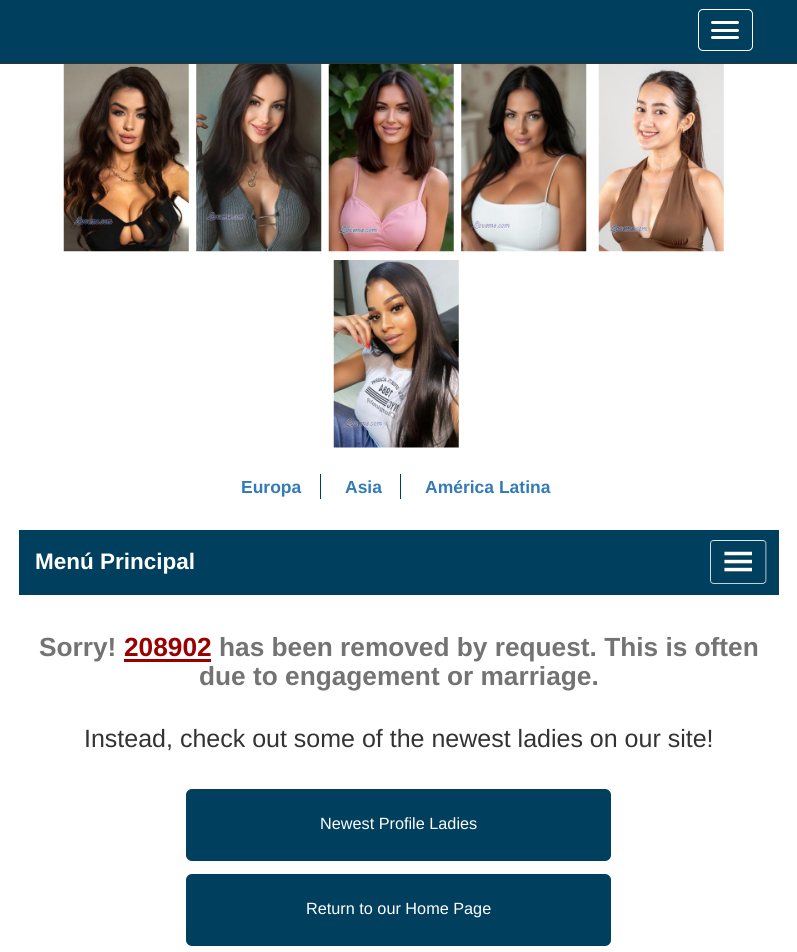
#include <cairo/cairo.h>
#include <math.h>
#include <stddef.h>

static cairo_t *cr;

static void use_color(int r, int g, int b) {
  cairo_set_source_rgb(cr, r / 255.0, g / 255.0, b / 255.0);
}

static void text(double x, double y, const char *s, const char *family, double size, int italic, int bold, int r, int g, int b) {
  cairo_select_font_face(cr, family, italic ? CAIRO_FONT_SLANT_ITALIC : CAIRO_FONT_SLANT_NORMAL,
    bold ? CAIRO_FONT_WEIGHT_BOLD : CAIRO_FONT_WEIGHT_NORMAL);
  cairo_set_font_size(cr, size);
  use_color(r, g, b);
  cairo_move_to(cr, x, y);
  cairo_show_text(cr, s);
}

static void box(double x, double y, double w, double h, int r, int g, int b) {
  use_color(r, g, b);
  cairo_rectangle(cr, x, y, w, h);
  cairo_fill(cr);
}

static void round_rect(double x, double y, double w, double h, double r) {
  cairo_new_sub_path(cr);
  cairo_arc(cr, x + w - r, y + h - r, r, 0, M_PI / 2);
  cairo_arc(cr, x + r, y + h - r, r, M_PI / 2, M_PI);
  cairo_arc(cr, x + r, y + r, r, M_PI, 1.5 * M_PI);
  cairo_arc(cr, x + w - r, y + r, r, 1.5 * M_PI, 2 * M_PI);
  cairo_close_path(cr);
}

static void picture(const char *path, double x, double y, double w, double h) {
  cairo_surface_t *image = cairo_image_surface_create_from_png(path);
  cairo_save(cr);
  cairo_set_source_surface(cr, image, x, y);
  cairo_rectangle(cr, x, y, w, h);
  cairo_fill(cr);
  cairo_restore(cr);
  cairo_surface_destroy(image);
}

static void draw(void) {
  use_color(255, 255, 255);
  cairo_paint(cr);
  box(0, 0, 797, 63, 0, 63, 94);
  box(0, 63, 797, 1, 51, 51, 51);
  round_rect(698.5, 9.5, 54, 41, 4.5);
  use_color(255, 255, 255);
  cairo_set_line_width(cr, 1);
  cairo_stroke(cr);
  round_rect(711, 21, 28, 3, 1.5);
  cairo_fill(cr);
  round_rect(711, 29, 28, 3, 1.5);
  cairo_fill(cr);
  round_rect(711, 36, 28, 3, 1.5);
  cairo_fill(cr);
  picture("img_01.png", 63, 64, 126, 188);
  picture("img_02.png", 196, 64, 126, 188);
  picture("img_03.png", 328, 64, 126, 188);
  picture("img_04.png", 461, 64, 126, 188);
  picture("img_05.png", 598, 64, 126, 188);
  picture("img_06.png", 333, 260, 126, 188);
  box(320, 474, 1, 25, 0, 63, 94);
  box(400, 474, 1, 25, 0, 63, 94);
  box(19, 530, 760, 65, 0, 63, 94);
  picture("img_07.png", 710, 540, 57, 44);
  box(124, 659, 87, 3, 153, 0, 0);
  use_color(0, 63, 94);
  round_rect(186, 789, 425, 72, 6);
  cairo_fill(cr);
  round_rect(186, 874, 425, 72, 6);
  cairo_fill(cr);
  text(241, 493, "Europa", "Liberation Sans", 17.5, 0, 1, 51, 122, 183);
  text(345, 493, "Asia", "Liberation Sans", 17.5, 0, 1, 51, 122, 183);
  text(425, 493, "América Latina", "Liberation Sans", 17.5, 0, 1, 51, 122, 183);
  text(35, 569, "Menú Principal", "Liberation Sans", 22.5, 0, 1, 255, 255, 255);
  text(39, 656, "Sorry!", "Liberation Sans", 26.25, 0, 1, 115, 115, 115);
  text(124, 656, "208902", "Liberation Sans", 26.25, 0, 1, 153, 0, 0);
  text(219, 656, "has been removed by request. This is often", "Liberation Sans", 26.25, 0, 1, 115, 115, 115);
  text(199, 685, "due to engagement or marriage.", "Liberation Sans", 26.25, 0, 1, 115, 115, 115);
  text(84, 747, "Instead, check out some of the newest ladies on our site!", "Liberation Sans", 25, 0, 0, 51, 51, 51);
  text(320, 829, "Newest Profile Ladies", "Liberation Sans", 16.25, 0, 0, 255, 255, 255);
  text(306, 914, "Return to our Home Page", "Liberation Sans", 16.25, 0, 0, 255, 255, 255);
}

int main(void) {
  cairo_surface_t *surface = cairo_image_surface_create(CAIRO_FORMAT_RGB24, 797, 952);
  cr = cairo_create(surface);
  cairo_font_options_t *options = cairo_font_options_create();
  cairo_font_options_set_hint_metrics(options, CAIRO_HINT_METRICS_OFF);
  cairo_font_options_set_hint_style(options, CAIRO_HINT_STYLE_NONE);
  cairo_set_font_options(cr, options);
  cairo_set_miter_limit(cr, 4);
  draw();
  cairo_surface_write_to_png(surface, "out.png");
  cairo_font_options_destroy(options);
  cairo_destroy(cr);
  cairo_surface_destroy(surface);
  return 0;
}
